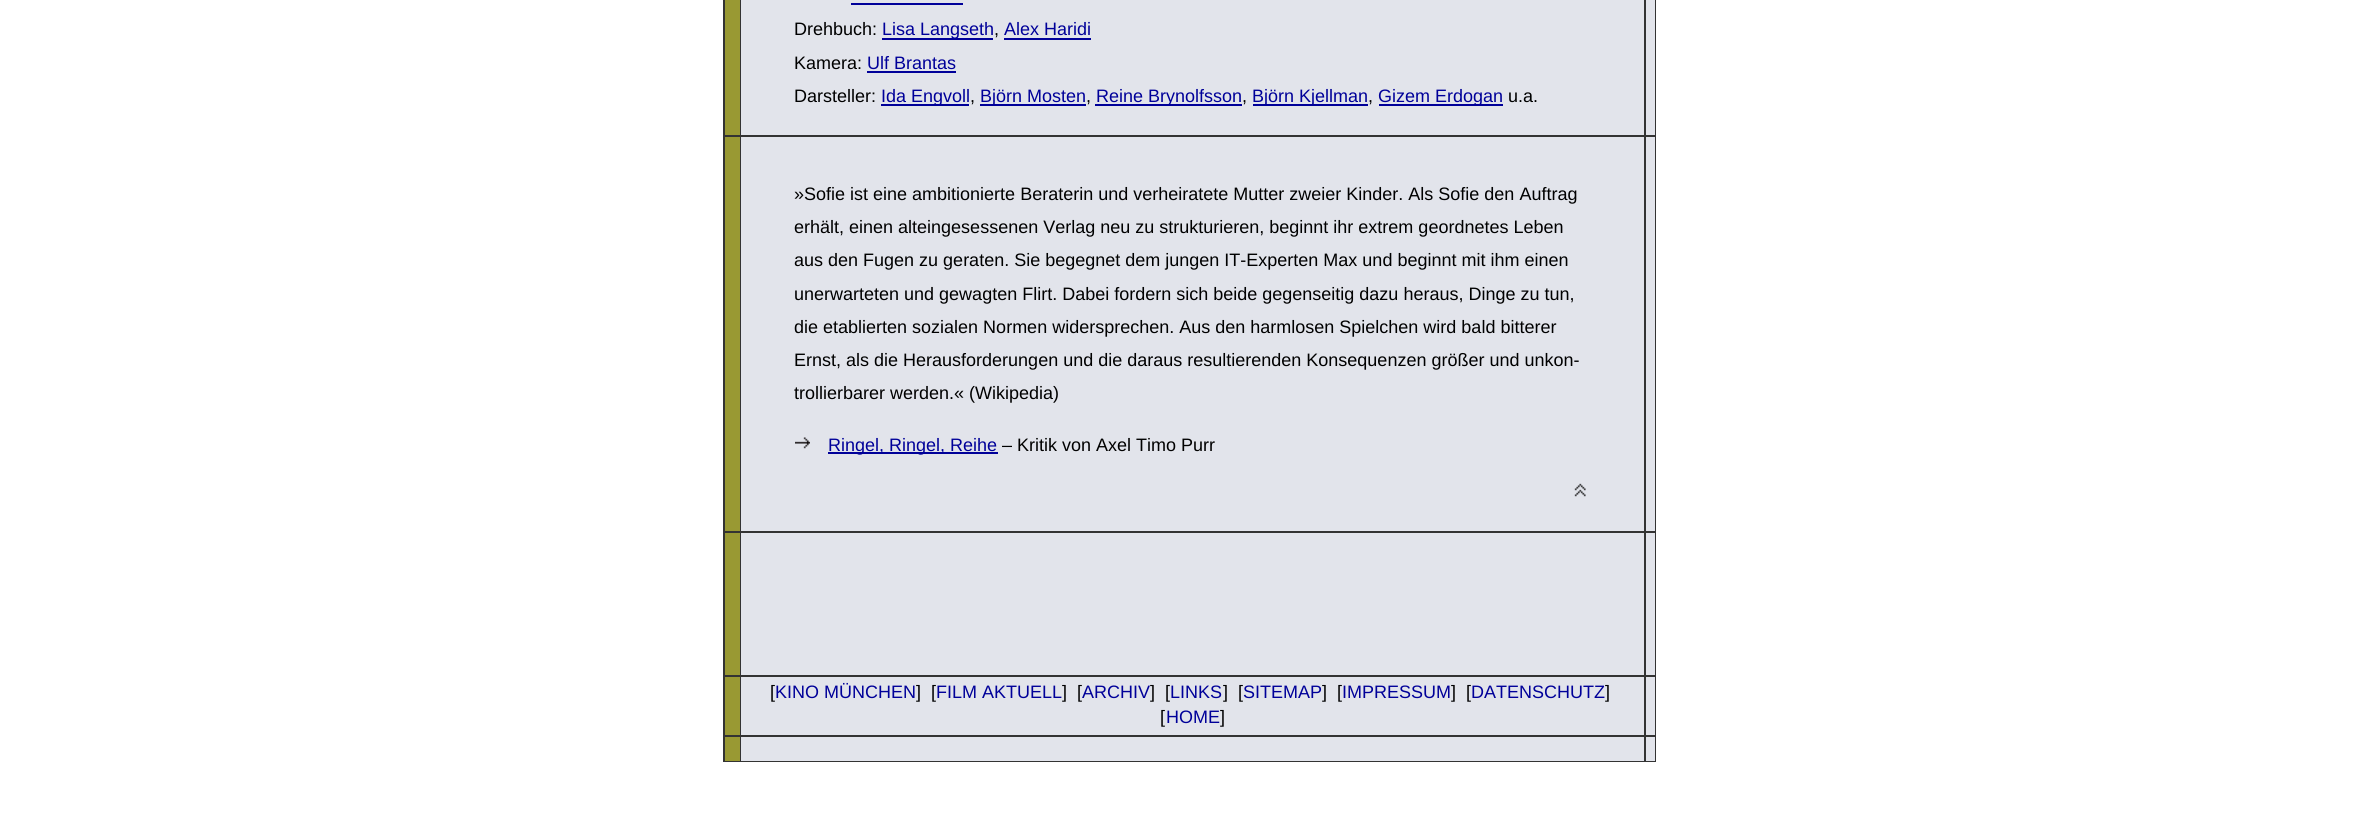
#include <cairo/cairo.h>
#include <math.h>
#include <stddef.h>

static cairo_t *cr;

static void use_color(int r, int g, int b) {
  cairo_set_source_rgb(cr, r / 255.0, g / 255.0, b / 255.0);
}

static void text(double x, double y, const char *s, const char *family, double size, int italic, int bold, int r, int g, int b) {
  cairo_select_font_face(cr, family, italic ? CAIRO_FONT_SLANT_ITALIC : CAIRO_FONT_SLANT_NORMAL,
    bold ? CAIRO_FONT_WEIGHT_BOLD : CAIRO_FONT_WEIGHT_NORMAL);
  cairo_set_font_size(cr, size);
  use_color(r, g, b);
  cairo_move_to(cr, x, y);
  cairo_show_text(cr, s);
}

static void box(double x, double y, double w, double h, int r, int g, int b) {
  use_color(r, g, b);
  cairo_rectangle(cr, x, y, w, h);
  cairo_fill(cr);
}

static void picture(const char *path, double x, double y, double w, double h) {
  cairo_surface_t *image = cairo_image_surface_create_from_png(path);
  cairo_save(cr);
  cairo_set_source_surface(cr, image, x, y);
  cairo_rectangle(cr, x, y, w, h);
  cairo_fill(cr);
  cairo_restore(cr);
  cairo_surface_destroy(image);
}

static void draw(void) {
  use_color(255, 255, 255);
  cairo_paint(cr);
  box(723, 0, 933, 762, 51, 51, 51);
  box(1646, 0, 9, 135, 226, 228, 235);
  box(725, 0, 15, 135, 153, 153, 51);
  box(741, 0, 903, 135, 226, 228, 235);
  box(851, 3, 112, 2, 0, 0, 153);
  box(882, 38, 111, 2, 0, 0, 153);
  box(1004, 38, 87, 2, 0, 0, 153);
  box(867, 71, 89, 2, 0, 0, 153);
  box(881, 104, 88, 2, 0, 0, 153);
  box(980, 104, 106, 2, 0, 0, 153);
  box(1095, 104, 147, 2, 0, 0, 153);
  box(1253, 104, 115, 2, 0, 0, 153);
  box(1379, 104, 124, 2, 0, 0, 153);
  box(1646, 137, 9, 394, 226, 228, 235);
  box(725, 137, 15, 394, 153, 153, 51);
  box(741, 137, 903, 394, 226, 228, 235);
  picture("img_01.png", 795, 437, 15, 12);
  box(828, 452, 170, 2, 0, 0, 153);
  picture("img_02.png", 1574, 483, 12, 14);
  box(1646, 533, 9, 142, 226, 228, 235);
  box(725, 533, 15, 142, 153, 153, 51);
  box(741, 533, 903, 142, 226, 228, 235);
  box(1646, 677, 9, 58, 226, 228, 235);
  box(725, 677, 15, 58, 153, 153, 51);
  box(741, 677, 903, 58, 226, 228, 235);
  box(1646, 737, 9, 24, 226, 228, 235);
  box(725, 737, 15, 24, 153, 153, 51);
  box(741, 737, 903, 24, 226, 228, 235);
  text(794, 35, "Drehbuch:", "Liberation Sans", 18, 0, 0, 0, 0, 0);
  text(882, 35, "Lisa Langseth", "Liberation Sans", 18, 0, 0, 0, 0, 153);
  text(994, 35, ",", "Liberation Sans", 18, 0, 0, 0, 0, 0);
  text(1004, 35, "Alex Haridi", "Liberation Sans", 18, 0, 0, 0, 0, 153);
  text(794, 69, "Kamera:", "Liberation Sans", 18, 0, 0, 0, 0, 0);
  text(867, 69, "Ulf Brantas", "Liberation Sans", 18, 0, 0, 0, 0, 153);
  text(794, 102, "Darsteller:", "Liberation Sans", 18, 0, 0, 0, 0, 0);
  text(881, 102, "Ida Engvoll", "Liberation Sans", 18, 0, 0, 0, 0, 153);
  text(970, 102, ",", "Liberation Sans", 18, 0, 0, 0, 0, 0);
  text(980, 102, "Björn Mosten", "Liberation Sans", 18, 0, 0, 0, 0, 153);
  text(1086, 102, ",", "Liberation Sans", 18, 0, 0, 0, 0, 0);
  text(1096, 102, "Reine Brynolfsson", "Liberation Sans", 18, 0, 0, 0, 0, 153);
  text(1242, 102, ",", "Liberation Sans", 18, 0, 0, 0, 0, 0);
  text(1252, 102, "Björn Kjellman", "Liberation Sans", 18, 0, 0, 0, 0, 153);
  text(1368, 102, ",", "Liberation Sans", 18, 0, 0, 0, 0, 0);
  text(1378, 102, "Gizem Erdogan", "Liberation Sans", 18, 0, 0, 0, 0, 153);
  text(1508, 102, "u.a.", "Liberation Sans", 18, 0, 0, 0, 0, 0);
  text(794, 200, "»Sofie ist eine ambitionierte Beraterin und verheiratete Mutter zweier Kinder. Als Sofie den Auftrag", "Liberation Sans", 18, 0, 0, 0, 0, 0);
  text(794, 233, "erhält, einen alteingesessenen Verlag neu zu strukturieren, beginnt ihr extrem geordnetes Leben", "Liberation Sans", 18, 0, 0, 0, 0, 0);
  text(794, 266, "aus den Fugen zu geraten. Sie begegnet dem jungen IT-Experten Max und beginnt mit ihm einen", "Liberation Sans", 18, 0, 0, 0, 0, 0);
  text(794, 300, "unerwarteten und gewagten Flirt. Dabei fordern sich beide gegenseitig dazu heraus, Dinge zu tun,", "Liberation Sans", 18, 0, 0, 0, 0, 0);
  text(794, 333, "die etablierten sozialen Normen widersprechen. Aus den harmlosen Spielchen wird bald bitterer", "Liberation Sans", 18, 0, 0, 0, 0, 0);
  text(794, 366, "Ernst, als die Herausforderungen und die daraus resultierenden Konsequenzen größer und unkon-", "Liberation Sans", 18, 0, 0, 0, 0, 0);
  text(794, 399, "trollierbarer werden.« (Wikipedia)", "Liberation Sans", 18, 0, 0, 0, 0, 0);
  text(828, 451, "Ringel, Ringel, Reihe", "Liberation Sans", 18, 0, 0, 0, 0, 153);
  text(1002, 451, "– Kritik von Axel Timo Purr", "Liberation Sans", 18, 0, 0, 0, 0, 0);
  text(770, 698, "[", "Liberation Sans", 18, 0, 0, 0, 0, 0);
  text(775, 698, "KINO MÜNCHEN", "Liberation Sans", 18, 0, 0, 0, 0, 153);
  text(916, 698, "]  [", "Liberation Sans", 18, 0, 0, 0, 0, 0);
  text(936, 698, "FILM AKTUELL", "Liberation Sans", 18, 0, 0, 0, 0, 153);
  text(1062, 698, "]  [", "Liberation Sans", 18, 0, 0, 0, 0, 0);
  text(1082, 698, "ARCHIV", "Liberation Sans", 18, 0, 0, 0, 0, 153);
  text(1150, 698, "]  [", "Liberation Sans", 18, 0, 0, 0, 0, 0);
  text(1170, 698, "LINKS", "Liberation Sans", 18, 0, 0, 0, 0, 153);
  text(1223, 698, "]  [", "Liberation Sans", 18, 0, 0, 0, 0, 0);
  text(1243, 698, "SITEMAP", "Liberation Sans", 18, 0, 0, 0, 0, 153);
  text(1322, 698, "]  [", "Liberation Sans", 18, 0, 0, 0, 0, 0);
  text(1342, 698, "IMPRESSUM", "Liberation Sans", 18, 0, 0, 0, 0, 153);
  text(1451, 698, "]  [", "Liberation Sans", 18, 0, 0, 0, 0, 0);
  text(1471, 698, "DATENSCHUTZ", "Liberation Sans", 18, 0, 0, 0, 0, 153);
  text(1605, 698, "]", "Liberation Sans", 18, 0, 0, 0, 0, 0);
  text(1160, 723, "[", "Liberation Sans", 18, 0, 0, 0, 0, 0);
  text(1166, 723, "HOME", "Liberation Sans", 18, 0, 0, 0, 0, 153);
  text(1220, 723, "]", "Liberation Sans", 18, 0, 0, 0, 0, 0);
}

int main(void) {
  cairo_surface_t *surface = cairo_image_surface_create(CAIRO_FORMAT_RGB24, 2378, 818);
  cr = cairo_create(surface);
  cairo_font_options_t *options = cairo_font_options_create();
  cairo_font_options_set_hint_metrics(options, CAIRO_HINT_METRICS_OFF);
  cairo_font_options_set_hint_style(options, CAIRO_HINT_STYLE_NONE);
  cairo_set_font_options(cr, options);
  cairo_set_miter_limit(cr, 4);
  draw();
  cairo_surface_write_to_png(surface, "out.png");
  cairo_font_options_destroy(options);
  cairo_destroy(cr);
  cairo_surface_destroy(surface);
  return 0;
}
